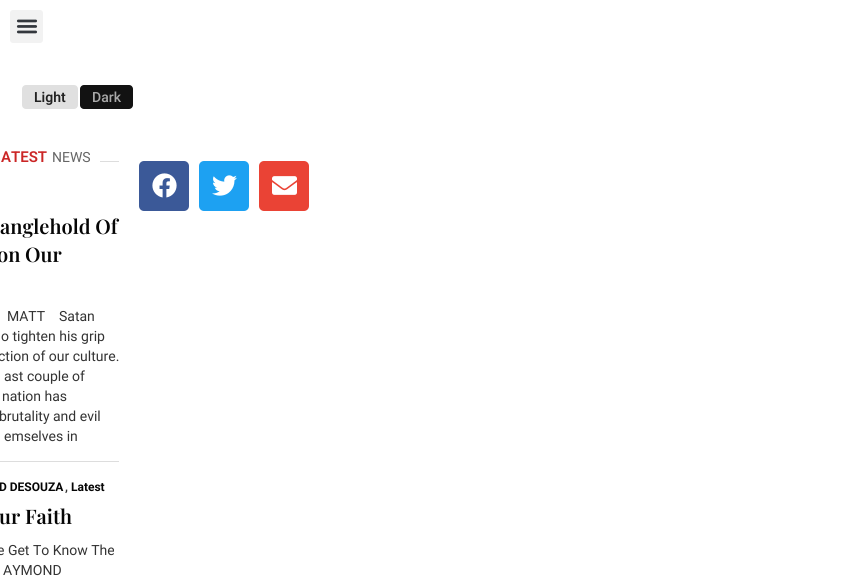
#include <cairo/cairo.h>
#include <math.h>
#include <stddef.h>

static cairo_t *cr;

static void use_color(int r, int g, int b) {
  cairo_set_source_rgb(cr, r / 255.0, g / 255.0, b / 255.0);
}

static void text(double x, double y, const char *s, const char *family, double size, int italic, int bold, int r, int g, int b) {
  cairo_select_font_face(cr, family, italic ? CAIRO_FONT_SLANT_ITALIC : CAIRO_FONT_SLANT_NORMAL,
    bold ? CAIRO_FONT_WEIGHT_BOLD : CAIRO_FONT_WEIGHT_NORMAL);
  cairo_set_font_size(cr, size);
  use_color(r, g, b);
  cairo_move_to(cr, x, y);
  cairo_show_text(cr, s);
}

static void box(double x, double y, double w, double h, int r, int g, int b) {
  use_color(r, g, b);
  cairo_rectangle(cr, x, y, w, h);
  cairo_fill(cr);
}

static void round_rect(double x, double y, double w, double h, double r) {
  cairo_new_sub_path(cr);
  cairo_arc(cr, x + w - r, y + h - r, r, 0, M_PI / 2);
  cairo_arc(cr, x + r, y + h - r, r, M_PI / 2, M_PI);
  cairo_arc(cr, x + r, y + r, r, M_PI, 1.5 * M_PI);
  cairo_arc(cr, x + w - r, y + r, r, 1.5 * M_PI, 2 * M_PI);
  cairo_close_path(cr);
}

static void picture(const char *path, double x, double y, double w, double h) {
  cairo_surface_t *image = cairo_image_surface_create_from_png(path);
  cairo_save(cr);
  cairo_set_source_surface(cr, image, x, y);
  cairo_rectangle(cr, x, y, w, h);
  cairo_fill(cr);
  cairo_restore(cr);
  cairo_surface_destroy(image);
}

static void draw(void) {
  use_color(255, 255, 255);
  cairo_paint(cr);
  use_color(242, 242, 242);
  round_rect(10, 10, 33, 33, 3);
  cairo_fill(cr);
  picture("img_01.png", 16, 19, 22, 15);
  use_color(224, 224, 224);
  round_rect(22, 85, 56, 24, 4);
  cairo_fill(cr);
  use_color(18, 18, 18);
  round_rect(80, 85, 53, 24, 4);
  cairo_fill(cr);
  box(100, 161, 19, 1, 221, 221, 221);
  box(0, 461, 119, 1, 221, 221, 221);
  use_color(59, 89, 152);
  round_rect(139, 161, 50, 50, 5);
  cairo_fill(cr);
  picture("img_02.png", 152, 173, 25, 25);
  use_color(29, 161, 242);
  round_rect(199, 161, 50, 50, 5);
  cairo_fill(cr);
  picture("img_03.png", 212, 175, 25, 21);
  use_color(234, 67, 53);
  round_rect(259, 161, 50, 50, 5);
  cairo_fill(cr);
  picture("img_04.png", 272, 176, 25, 19);
  text(34, 102, "Light", "Roboto SemiBold", 14, 0, 0, 34, 34, 34);
  text(92, 102, "Dark", "Roboto Medium", 14, 0, 0, 170, 170, 170);
  text(1, 162, "ATEST", "Roboto SemiBold", 15, 0, 0, 203, 38, 38);
  text(52, 162, "NEWS", "Roboto", 14, 0, 0, 102, 102, 102);
  text(0, 234, "anglehold Of", "Playfair Display SemiBold", 20, 0, 0, 5, 5, 5);
  text(-3, 262, "on Our", "Playfair Display SemiBold", 20, 0, 0, 5, 5, 5);
  text(7, 321, "MATT    Satan", "Roboto", 14, 0, 0, 51, 51, 51);
  text(1, 341, "o tighten his grip", "Roboto", 14, 0, 0, 51, 51, 51);
  text(-2, 361, "ction of our culture.", "Roboto", 14, 0, 0, 51, 51, 51);
  text(4, 381, "ast couple of", "Roboto", 14, 0, 0, 51, 51, 51);
  text(2, 401, "nation has", "Roboto", 14, 0, 0, 51, 51, 51);
  text(-1, 421, "brutality and evil", "Roboto", 14, 0, 0, 51, 51, 51);
  text(4, 441, "emselves in", "Roboto", 14, 0, 0, 51, 51, 51);
  text(-1, 491, "D DESOUZA", "Roboto", 12, 0, 1, 5, 5, 5);
  text(65, 491, ",", "Roboto", 12, 0, 1, 51, 51, 51);
  text(71, 491, "Latest", "Roboto", 12, 0, 1, 5, 5, 5);
  text(-1, 524, "ur Faith", "Playfair Display SemiBold", 20, 0, 0, 5, 5, 5);
  text(-3, 555, "e Get To Know The", "Roboto", 14, 0, 0, 51, 51, 51);
  text(3, 575, "AYMOND", "Roboto", 14, 0, 0, 51, 51, 51);
}

int main(void) {
  cairo_surface_t *surface = cairo_image_surface_create(CAIRO_FORMAT_RGB24, 849, 584);
  cr = cairo_create(surface);
  cairo_font_options_t *options = cairo_font_options_create();
  cairo_font_options_set_hint_metrics(options, CAIRO_HINT_METRICS_OFF);
  cairo_font_options_set_hint_style(options, CAIRO_HINT_STYLE_NONE);
  cairo_set_font_options(cr, options);
  cairo_set_miter_limit(cr, 4);
  draw();
  cairo_surface_write_to_png(surface, "out.png");
  cairo_font_options_destroy(options);
  cairo_destroy(cr);
  cairo_surface_destroy(surface);
  return 0;
}
